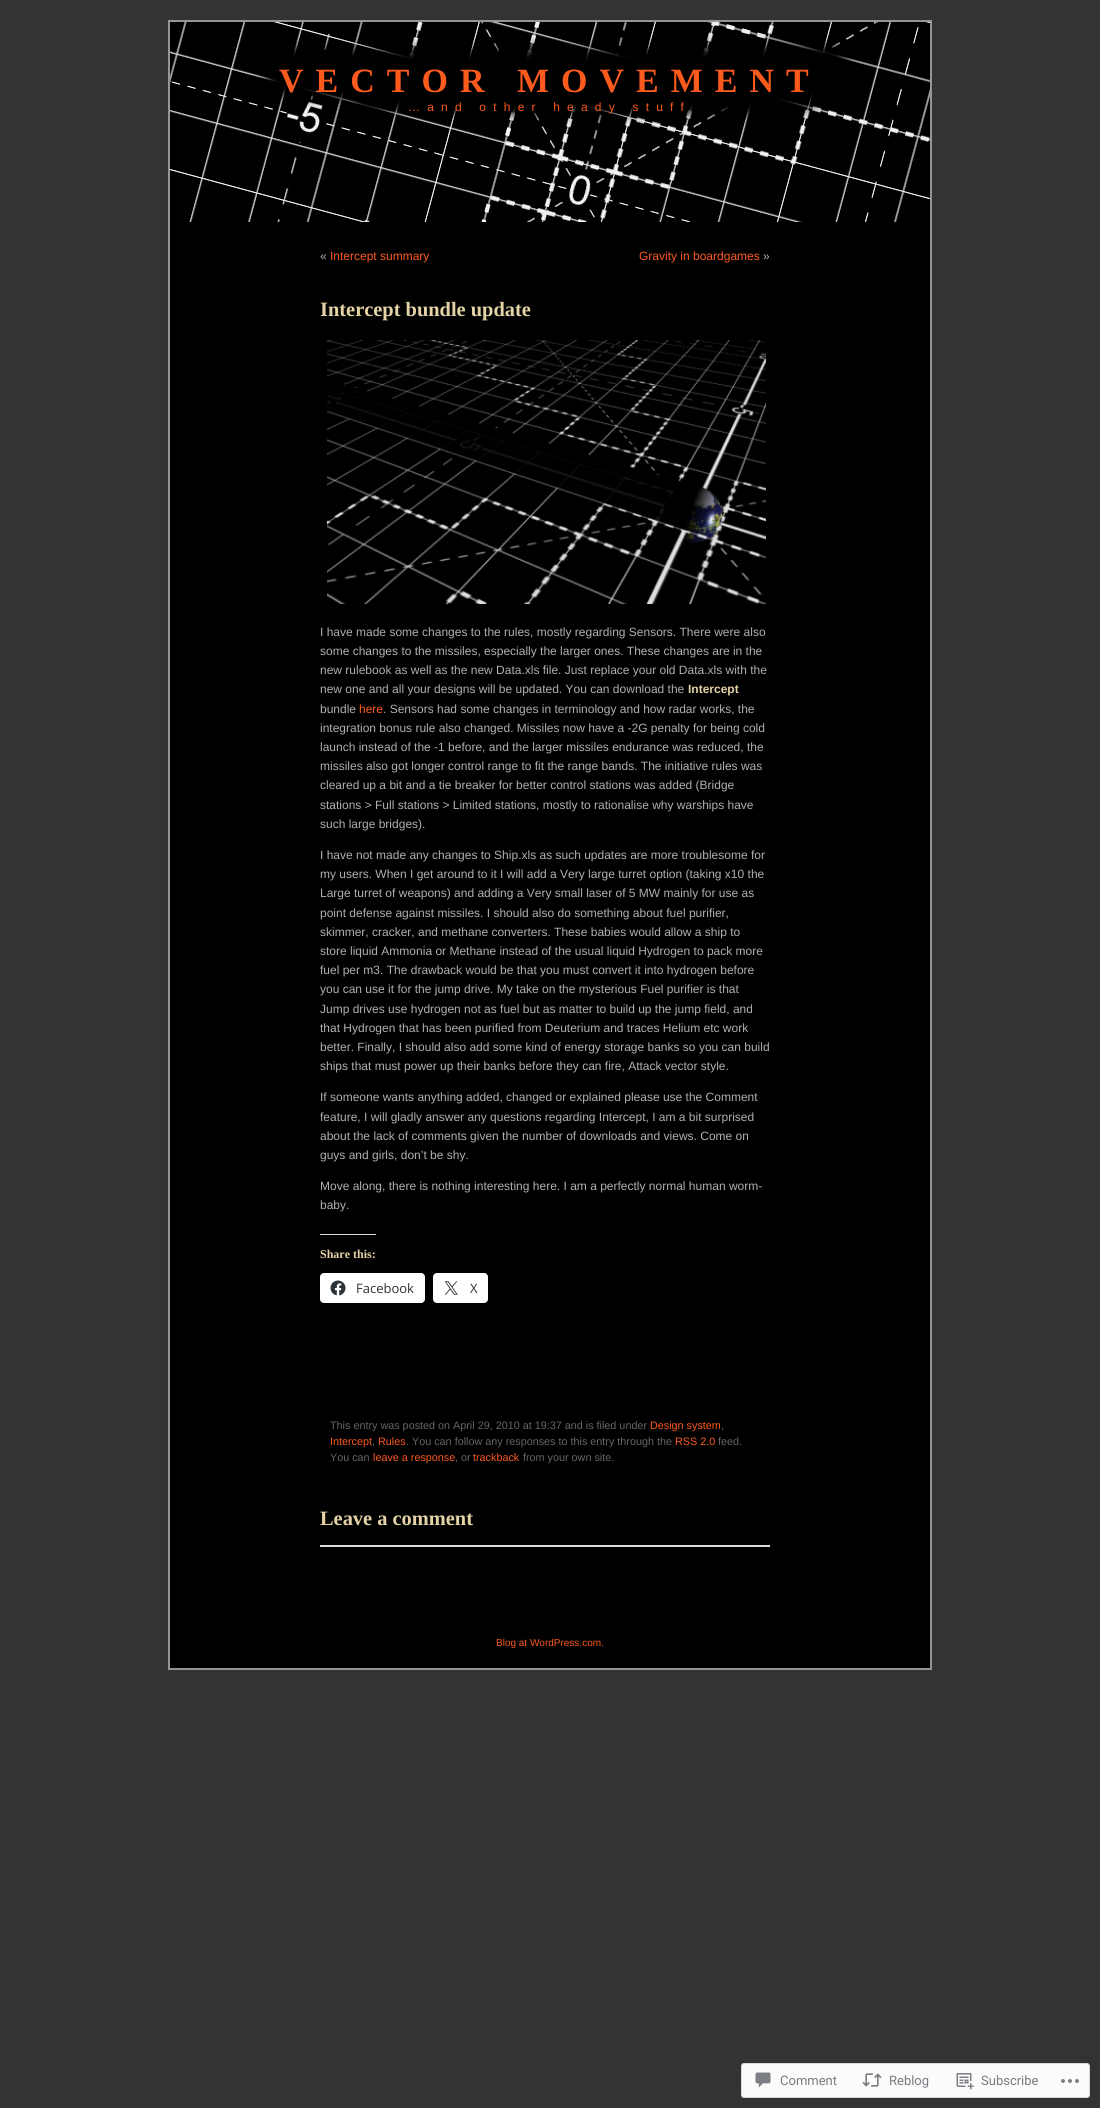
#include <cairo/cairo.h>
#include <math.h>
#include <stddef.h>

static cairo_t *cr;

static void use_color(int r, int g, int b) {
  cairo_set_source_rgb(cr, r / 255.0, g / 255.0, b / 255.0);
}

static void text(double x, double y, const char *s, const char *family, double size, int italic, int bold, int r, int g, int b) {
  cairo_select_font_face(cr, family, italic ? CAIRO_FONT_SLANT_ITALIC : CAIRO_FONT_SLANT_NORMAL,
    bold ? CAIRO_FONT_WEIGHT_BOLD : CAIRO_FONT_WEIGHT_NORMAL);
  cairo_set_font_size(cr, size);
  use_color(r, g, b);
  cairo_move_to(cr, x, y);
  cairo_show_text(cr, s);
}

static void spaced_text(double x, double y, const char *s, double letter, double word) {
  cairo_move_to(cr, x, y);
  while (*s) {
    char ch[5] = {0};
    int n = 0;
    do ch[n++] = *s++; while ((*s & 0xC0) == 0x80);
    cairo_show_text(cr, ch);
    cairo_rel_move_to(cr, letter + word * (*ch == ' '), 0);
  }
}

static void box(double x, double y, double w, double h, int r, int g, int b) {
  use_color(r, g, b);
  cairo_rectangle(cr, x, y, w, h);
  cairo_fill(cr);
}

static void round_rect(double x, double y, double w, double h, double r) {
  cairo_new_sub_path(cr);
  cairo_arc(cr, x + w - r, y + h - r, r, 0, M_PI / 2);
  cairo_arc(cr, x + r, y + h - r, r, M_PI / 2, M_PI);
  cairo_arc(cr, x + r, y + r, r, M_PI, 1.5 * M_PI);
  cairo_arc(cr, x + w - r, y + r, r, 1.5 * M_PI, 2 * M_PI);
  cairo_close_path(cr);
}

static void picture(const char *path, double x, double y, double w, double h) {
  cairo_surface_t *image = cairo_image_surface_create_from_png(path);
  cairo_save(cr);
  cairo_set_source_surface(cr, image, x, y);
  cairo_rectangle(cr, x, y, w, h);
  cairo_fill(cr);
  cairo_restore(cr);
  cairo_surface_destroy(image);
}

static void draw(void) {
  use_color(51, 51, 51);
  cairo_paint(cr);
  box(170, 222, 760, 1446, 0, 0, 0);
  cairo_rectangle(cr, 169, 21, 762, 1648);
  use_color(149, 149, 150);
  cairo_stroke(cr);
  picture("img_01.png", 170, 22, 760, 200);
  picture("img_02.png", 327, 340, 439, 264);
  box(320, 1234, 56, 1, 220, 220, 222);
  use_color(255, 255, 255);
  round_rect(320, 1273, 105, 30, 4);
  cairo_fill(cr);
  picture("img_03.png", 330, 1280, 16, 16);
  round_rect(433, 1273, 55, 30, 4);
  cairo_fill(cr);
  picture("img_04.png", 444, 1281, 14, 14);
  box(320, 1545, 450, 2, 220, 220, 222);
  use_color(251, 251, 251);
  round_rect(741.5, 2063.5, 348, 34, 2.5);
  cairo_fill_preserve(cr);
  use_color(217, 217, 219);
  cairo_set_line_width(cr, 1);
  cairo_stroke(cr);
  picture("img_05.png", 755, 2072, 16, 16);
  picture("img_06.png", 862, 2073, 20, 14);
  picture("img_07.png", 956, 2073, 18, 17);
  picture("img_08.png", 1061, 2079, 18, 4);
  cairo_select_font_face(cr, "Liberation Serif", CAIRO_FONT_SLANT_NORMAL, CAIRO_FONT_WEIGHT_BOLD);
  cairo_set_font_size(cr, 34);
  use_color(253, 90, 30);
  spaced_text(279, 92, "VECTOR MOVEMENT", 12, 0);
  cairo_select_font_face(cr, "Liberation Sans", CAIRO_FONT_SLANT_NORMAL, CAIRO_FONT_WEIGHT_NORMAL);
  cairo_set_font_size(cr, 12);
  spaced_text(408, 111, "…and other heady stuff", 7.2, 0);
  text(320, 260, "«", "Liberation Sans", 12, 0, 0, 176, 176, 176);
  text(330, 260, "Intercept summary", "Liberation Sans", 12, 0, 0, 253, 90, 30);
  text(639, 260, "Gravity in boardgames", "Liberation Sans", 12, 0, 0, 253, 90, 30);
  text(763, 260, "»", "Liberation Sans", 12, 0, 0, 176, 176, 176);
  text(320, 316, "Intercept bundle update", "Liberation Serif", 20.4, 0, 1, 228, 211, 166);
  text(320, 636, "I have made some changes to the rules, mostly regarding Sensors. There were also", "Liberation Sans", 12, 0, 0, 176, 176, 176);
  text(320, 655, "some changes to the missiles, especially the larger ones. These changes are in the", "Liberation Sans", 12, 0, 0, 176, 176, 176);
  text(320, 674, "new rulebook as well as the new Data.xls file. Just replace your old Data.xls with the", "Liberation Sans", 12, 0, 0, 176, 176, 176);
  text(320, 693, "new one and all your designs will be updated. You can download the", "Liberation Sans", 12, 0, 0, 176, 176, 176);
  text(688, 693, "Intercept", "Liberation Sans", 12, 0, 1, 228, 211, 166);
  text(320, 713, "bundle", "Liberation Sans", 12, 0, 0, 176, 176, 176);
  text(359, 713, "here", "Liberation Sans", 12, 0, 0, 253, 90, 30);
  text(383, 713, ". Sensors had some changes in terminology and how radar works, the", "Liberation Sans", 12, 0, 0, 176, 176, 176);
  text(320, 732, "integration bonus rule also changed. Missiles now have a -2G penalty for being cold", "Liberation Sans", 12, 0, 0, 176, 176, 176);
  text(320, 751, "launch instead of the -1 before, and the larger missiles endurance was reduced, the", "Liberation Sans", 12, 0, 0, 176, 176, 176);
  text(320, 770, "missiles also got longer control range to fit the range bands. The initiative rules was", "Liberation Sans", 12, 0, 0, 176, 176, 176);
  text(320, 789, "cleared up a bit and a tie breaker for better control stations was added (Bridge", "Liberation Sans", 12, 0, 0, 176, 176, 176);
  text(320, 809, "stations > Full stations > Limited stations, mostly to rationalise why warships have", "Liberation Sans", 12, 0, 0, 176, 176, 176);
  text(320, 828, "such large bridges).", "Liberation Sans", 12, 0, 0, 176, 176, 176);
  text(320, 859, "I have not made any changes to Ship.xls as such updates are more troublesome for", "Liberation Sans", 12, 0, 0, 176, 176, 176);
  text(320, 878, "my users. When I get around to it I will add a Very large turret option (taking x10 the", "Liberation Sans", 12, 0, 0, 176, 176, 176);
  text(320, 897, "Large turret of weapons) and adding a Very small laser of 5 MW mainly for use as", "Liberation Sans", 12, 0, 0, 176, 176, 176);
  text(320, 917, "point defense against missiles. I should also do something about fuel purifier,", "Liberation Sans", 12, 0, 0, 176, 176, 176);
  text(320, 936, "skimmer, cracker, and methane converters. These babies would allow a ship to", "Liberation Sans", 12, 0, 0, 176, 176, 176);
  text(320, 955, "store liquid Ammonia or Methane instead of the usual liquid Hydrogen to pack more", "Liberation Sans", 12, 0, 0, 176, 176, 176);
  text(320, 974, "fuel per m3. The drawback would be that you must convert it into hydrogen before", "Liberation Sans", 12, 0, 0, 176, 176, 176);
  text(320, 993, "you can use it for the jump drive. My take on the mysterious Fuel purifier is that", "Liberation Sans", 12, 0, 0, 176, 176, 176);
  text(320, 1013, "Jump drives use hydrogen not as fuel but as matter to build up the jump field, and", "Liberation Sans", 12, 0, 0, 176, 176, 176);
  text(320, 1032, "that Hydrogen that has been purified from Deuterium and traces Helium etc work", "Liberation Sans", 12, 0, 0, 176, 176, 176);
  text(320, 1051, "better. Finally, I should also add some kind of energy storage banks so you can build", "Liberation Sans", 12, 0, 0, 176, 176, 176);
  text(320, 1070, "ships that must power up their banks before they can fire, Attack vector style.", "Liberation Sans", 12, 0, 0, 176, 176, 176);
  text(320, 1101, "If someone wants anything added, changed or explained please use the Comment", "Liberation Sans", 12, 0, 0, 176, 176, 176);
  text(320, 1121, "feature, I will gladly answer any questions regarding Intercept, I am a bit surprised", "Liberation Sans", 12, 0, 0, 176, 176, 176);
  text(320, 1140, "about the lack of comments given the number of downloads and views. Come on", "Liberation Sans", 12, 0, 0, 176, 176, 176);
  text(320, 1159, "guys and girls, don’t be shy.", "Liberation Sans", 12, 0, 0, 176, 176, 176);
  text(320, 1190, "Move along, there is nothing interesting here. I am a perfectly normal human worm-", "Liberation Sans", 12, 0, 0, 176, 176, 176);
  text(320, 1209, "baby.", "Liberation Sans", 12, 0, 0, 176, 176, 176);
  text(320, 1258, "Share this:", "Liberation Serif", 12, 0, 1, 228, 211, 166);
  text(356, 1293, "Facebook", "Open Sans", 13, 0, 0, 44, 51, 56);
  text(470, 1293, "X", "Open Sans", 13, 0, 0, 44, 51, 56);
  text(330, 1429, "This entry was posted on April 29, 2010 at 19:37 and is filed under", "Liberation Sans", 10.8, 0, 0, 102, 102, 102);
  text(650, 1429, "Design system", "Liberation Sans", 10.8, 0, 0, 253, 90, 30);
  text(721, 1429, ",", "Liberation Sans", 10.8, 0, 0, 102, 102, 102);
  text(330, 1445, "Intercept", "Liberation Sans", 10.8, 0, 0, 253, 90, 30);
  text(372, 1445, ",", "Liberation Sans", 10.8, 0, 0, 102, 102, 102);
  text(378, 1445, "Rules", "Liberation Sans", 10.8, 0, 0, 253, 90, 30);
  text(406, 1445, ". You can follow any responses to this entry through the", "Liberation Sans", 10.8, 0, 0, 102, 102, 102);
  text(675, 1445, "RSS 2.0", "Liberation Sans", 10.8, 0, 0, 253, 90, 30);
  text(718, 1445, "feed.", "Liberation Sans", 10.8, 0, 0, 102, 102, 102);
  text(330, 1461, "You can", "Liberation Sans", 10.8, 0, 0, 102, 102, 102);
  text(373, 1461, "leave a response", "Liberation Sans", 10.8, 0, 0, 253, 90, 30);
  text(455, 1461, ", or", "Liberation Sans", 10.8, 0, 0, 102, 102, 102);
  text(473, 1461, "trackback", "Liberation Sans", 10.8, 0, 0, 253, 90, 30);
  text(523, 1461, "from your own site.", "Liberation Sans", 10.8, 0, 0, 102, 102, 102);
  text(320, 1525, "Leave a comment", "Liberation Serif", 20.4, 0, 1, 228, 211, 166);
  text(496, 1646, "Blog at WordPress.com.", "Liberation Sans", 10, 0, 0, 253, 90, 30);
  text(780, 2085, "Comment", "Roboto", 13, 0, 0, 119, 123, 128);
  text(889, 2085, "Reblog", "Roboto", 13, 0, 0, 119, 123, 128);
  text(981, 2085, "Subscribe", "Roboto", 13, 0, 0, 119, 123, 128);
}

int main(void) {
  cairo_surface_t *surface = cairo_image_surface_create(CAIRO_FORMAT_RGB24, 1100, 2108);
  cr = cairo_create(surface);
  cairo_font_options_t *options = cairo_font_options_create();
  cairo_font_options_set_hint_metrics(options, CAIRO_HINT_METRICS_OFF);
  cairo_font_options_set_hint_style(options, CAIRO_HINT_STYLE_NONE);
  cairo_set_font_options(cr, options);
  cairo_set_miter_limit(cr, 4);
  draw();
  cairo_surface_write_to_png(surface, "out.png");
  cairo_font_options_destroy(options);
  cairo_destroy(cr);
  cairo_surface_destroy(surface);
  return 0;
}
